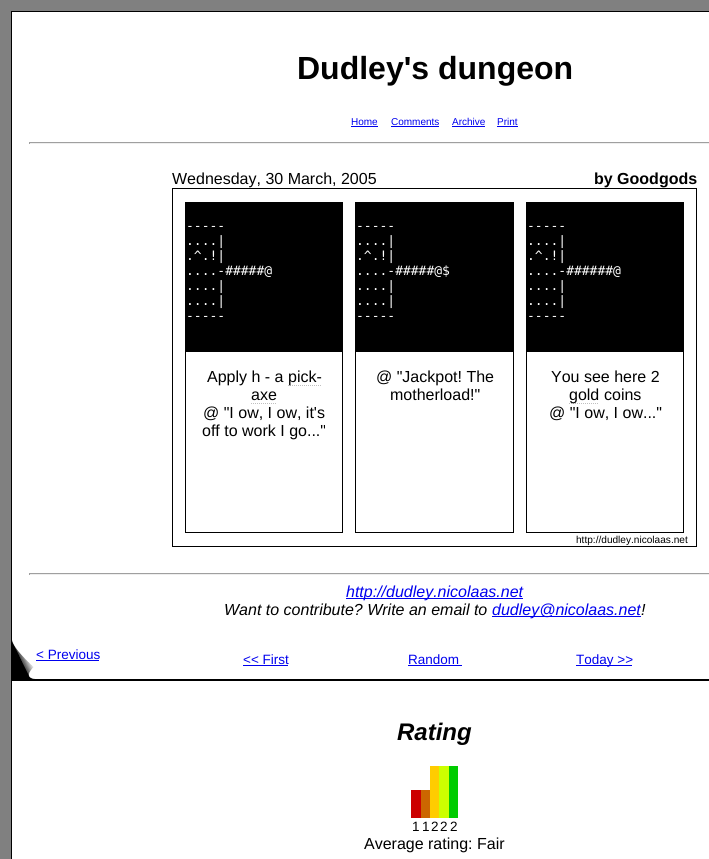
#include <cairo/cairo.h>
#include <math.h>
#include <stddef.h>

static cairo_t *cr;

static void use_color(int r, int g, int b) {
  cairo_set_source_rgb(cr, r / 255.0, g / 255.0, b / 255.0);
}

static void text(double x, double y, const char *s, const char *family, double size, int italic, int bold, int r, int g, int b) {
  cairo_select_font_face(cr, family, italic ? CAIRO_FONT_SLANT_ITALIC : CAIRO_FONT_SLANT_NORMAL,
    bold ? CAIRO_FONT_WEIGHT_BOLD : CAIRO_FONT_WEIGHT_NORMAL);
  cairo_set_font_size(cr, size);
  use_color(r, g, b);
  cairo_move_to(cr, x, y);
  cairo_show_text(cr, s);
}

static void box(double x, double y, double w, double h, int r, int g, int b) {
  use_color(r, g, b);
  cairo_rectangle(cr, x, y, w, h);
  cairo_fill(cr);
}

static void picture(const char *path, double x, double y, double w, double h) {
  cairo_surface_t *image = cairo_image_surface_create_from_png(path);
  cairo_save(cr);
  cairo_set_source_surface(cr, image, x, y);
  cairo_rectangle(cr, x, y, w, h);
  cairo_fill(cr);
  cairo_restore(cr);
  cairo_surface_destroy(image);
}

static void draw(void) {
  use_color(128, 128, 128);
  cairo_paint(cr);
  use_color(255, 255, 255);
  cairo_rectangle(cr, 11.5, 11.5, 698, 668);
  cairo_fill_preserve(cr);
  use_color(0, 0, 0);
  cairo_set_line_width(cr, 1);
  cairo_stroke(cr);
  box(351, 126, 27, 1, 0, 0, 238);
  box(391, 126, 48, 1, 0, 0, 238);
  box(452, 126, 33, 1, 0, 0, 238);
  box(497, 126, 21, 1, 0, 0, 238);
  box(29, 142, 680, 1, 159, 159, 159);
  box(29, 143, 680, 1, 238, 238, 238);
  box(29, 142, 1, 2, 159, 159, 159);
  cairo_rectangle(cr, 172.5, 188.5, 524, 358);
  use_color(0, 0, 0);
  cairo_stroke(cr);
  box(185, 202, 158, 331, 0, 0, 0);
  box(186, 352, 156, 180, 255, 255, 255);
  cairo_new_path(cr);
  cairo_move_to(cr, 288, 385.5);
  cairo_line_to(cr, 321, 385.5);
  use_color(192, 192, 192);
  cairo_set_dash(cr, (double[]){1, 1}, 2, 0);
  cairo_stroke(cr);
  cairo_new_path(cr);
  cairo_move_to(cr, 251, 403.5);
  cairo_line_to(cr, 277, 403.5);
  cairo_stroke(cr);
  box(355, 202, 159, 331, 0, 0, 0);
  box(356, 352, 157, 180, 255, 255, 255);
  box(526, 202, 158, 331, 0, 0, 0);
  box(527, 352, 156, 180, 255, 255, 255);
  cairo_new_path(cr);
  cairo_move_to(cr, 569, 403.5);
  cairo_line_to(cr, 599, 403.5);
  use_color(192, 192, 192);
  cairo_stroke(cr);
  box(29, 573, 680, 1, 159, 159, 159);
  box(29, 574, 680, 1, 238, 238, 238);
  box(29, 573, 1, 2, 159, 159, 159);
  box(346, 598, 177, 1, 0, 0, 238);
  box(492, 616, 149, 1, 0, 0, 238);
  picture("img_01.png", 12, 640, 23, 39);
  box(36, 660, 63, 1, 0, 0, 238);
  box(243, 665, 45, 1, 0, 0, 238);
  box(408, 665, 54, 1, 0, 0, 238);
  box(576, 665, 56, 1, 0, 0, 238);
  use_color(255, 255, 255);
  cairo_rectangle(cr, 11.5, 680.5, 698, 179);
  cairo_fill_preserve(cr);
  use_color(0, 0, 0);
  cairo_set_dash(cr, NULL, 0, 0);
  cairo_stroke(cr);
  box(411, 790, 10, 28, 204, 0, 0);
  box(421, 790, 9, 28, 204, 102, 0);
  box(430, 766, 9, 52, 255, 204, 0);
  box(439, 766, 10, 52, 204, 255, 0);
  box(449, 766, 9, 52, 0, 204, 0);
  text(297, 79, "Dudley's dungeon", "Liberation Sans", 32, 0, 1, 0, 0, 0);
  text(351, 125, "Home", "Liberation Sans", 10, 0, 0, 0, 0, 238);
  text(391, 125, "Comments", "Liberation Sans", 10, 0, 0, 0, 0, 238);
  text(452, 125, "Archive", "Liberation Sans", 10, 0, 0, 0, 0, 238);
  text(497, 125, "Print", "Liberation Sans", 10, 0, 0, 0, 0, 238);
  text(172, 184, "Wednesday, 30 March, 2005", "Liberation Sans", 16, 0, 0, 0, 0, 0);
  text(594, 184, "by Goodgods", "Liberation Sans", 16, 0, 1, 0, 0, 0);
  text(186, 230, "-----", "DejaVu Sans Mono", 13, 0, 0, 255, 255, 255);
  text(186, 245, "....|", "DejaVu Sans Mono", 13, 0, 0, 255, 255, 255);
  text(186, 260, ".^.!|", "DejaVu Sans Mono", 13, 0, 0, 255, 255, 255);
  text(186, 275, "....-#####@", "DejaVu Sans Mono", 13, 0, 0, 255, 255, 255);
  text(186, 290, "....|", "DejaVu Sans Mono", 13, 0, 0, 255, 255, 255);
  text(186, 305, "....|", "DejaVu Sans Mono", 13, 0, 0, 255, 255, 255);
  text(186, 320, "-----", "DejaVu Sans Mono", 13, 0, 0, 255, 255, 255);
  text(207, 382, "Apply h - a", "Liberation Sans", 16, 0, 0, 0, 0, 0);
  text(288, 382, "pick-", "Liberation Sans", 16, 0, 0, 0, 0, 0);
  text(251, 400, "axe", "Liberation Sans", 16, 0, 0, 0, 0, 0);
  text(203, 418, "@ \"I ow, I ow, it's", "Liberation Sans", 16, 0, 0, 0, 0, 0);
  text(202, 436, "off to work I go...\"", "Liberation Sans", 16, 0, 0, 0, 0, 0);
  text(356, 230, "-----", "DejaVu Sans Mono", 13, 0, 0, 255, 255, 255);
  text(356, 245, "....|", "DejaVu Sans Mono", 13, 0, 0, 255, 255, 255);
  text(356, 260, ".^.!|", "DejaVu Sans Mono", 13, 0, 0, 255, 255, 255);
  text(356, 275, "....-#####@$", "DejaVu Sans Mono", 13, 0, 0, 255, 255, 255);
  text(356, 290, "....|", "DejaVu Sans Mono", 13, 0, 0, 255, 255, 255);
  text(356, 305, "....|", "DejaVu Sans Mono", 13, 0, 0, 255, 255, 255);
  text(356, 320, "-----", "DejaVu Sans Mono", 13, 0, 0, 255, 255, 255);
  text(376, 382, "@ \"Jackpot! The", "Liberation Sans", 16, 0, 0, 0, 0, 0);
  text(390, 400, "motherload!\"", "Liberation Sans", 16, 0, 0, 0, 0, 0);
  text(527, 230, "-----", "DejaVu Sans Mono", 13, 0, 0, 255, 255, 255);
  text(527, 245, "....|", "DejaVu Sans Mono", 13, 0, 0, 255, 255, 255);
  text(527, 260, ".^.!|", "DejaVu Sans Mono", 13, 0, 0, 255, 255, 255);
  text(527, 275, "....-######@", "DejaVu Sans Mono", 13, 0, 0, 255, 255, 255);
  text(527, 290, "....|", "DejaVu Sans Mono", 13, 0, 0, 255, 255, 255);
  text(527, 305, "....|", "DejaVu Sans Mono", 13, 0, 0, 255, 255, 255);
  text(527, 320, "-----", "DejaVu Sans Mono", 13, 0, 0, 255, 255, 255);
  text(551, 382, "You see here 2", "Liberation Sans", 16, 0, 0, 0, 0, 0);
  text(569, 400, "gold", "Liberation Sans", 16, 0, 0, 0, 0, 0);
  text(604, 400, "coins", "Liberation Sans", 16, 0, 0, 0, 0, 0);
  text(549, 418, "@ \"I ow, I ow...\"", "Liberation Sans", 16, 0, 0, 0, 0, 0);
  text(576, 543, "http://dudley.nicolaas.net", "Liberation Sans", 10.1, 0, 0, 0, 0, 0);
  text(346, 597, "http://dudley.nicolaas.net", "Liberation Sans", 16, 1, 0, 0, 0, 238);
  text(224, 615, "Want to contribute? Write an email to", "Liberation Sans", 16, 1, 0, 0, 0, 0);
  text(492, 615, "dudley@nicolaas.net", "Liberation Sans", 16, 1, 0, 0, 0, 238);
  text(641, 615, "!", "Liberation Sans", 16, 1, 0, 0, 0, 0);
  text(36, 659, "< Previous", "Liberation Sans", 13.5, 0, 0, 0, 0, 238);
  text(243, 664, "<< First", "Liberation Sans", 13.5, 0, 0, 0, 0, 238);
  text(408, 664, "Random", "Liberation Sans", 13.5, 0, 0, 0, 0, 238);
  text(576, 664, "Today >>", "Liberation Sans", 13.5, 0, 0, 0, 0, 238);
  text(397, 740, "Rating", "Liberation Sans", 24, 1, 1, 0, 0, 0);
  text(412, 831, "1", "Liberation Sans", 13.5, 0, 0, 0, 0, 0);
  text(422, 831, "1", "Liberation Sans", 13.5, 0, 0, 0, 0, 0);
  text(431, 831, "2", "Liberation Sans", 13.5, 0, 0, 0, 0, 0);
  text(440, 831, "2", "Liberation Sans", 13.5, 0, 0, 0, 0, 0);
  text(450, 831, "2", "Liberation Sans", 13.5, 0, 0, 0, 0, 0);
  text(364, 849, "Average rating: Fair", "Liberation Sans", 16, 0, 0, 0, 0, 0);
}

int main(void) {
  cairo_surface_t *surface = cairo_image_surface_create(CAIRO_FORMAT_RGB24, 709, 859);
  cr = cairo_create(surface);
  cairo_font_options_t *options = cairo_font_options_create();
  cairo_font_options_set_hint_metrics(options, CAIRO_HINT_METRICS_OFF);
  cairo_font_options_set_hint_style(options, CAIRO_HINT_STYLE_NONE);
  cairo_set_font_options(cr, options);
  cairo_set_miter_limit(cr, 4);
  draw();
  cairo_surface_write_to_png(surface, "out.png");
  cairo_font_options_destroy(options);
  cairo_destroy(cr);
  cairo_surface_destroy(surface);
  return 0;
}
